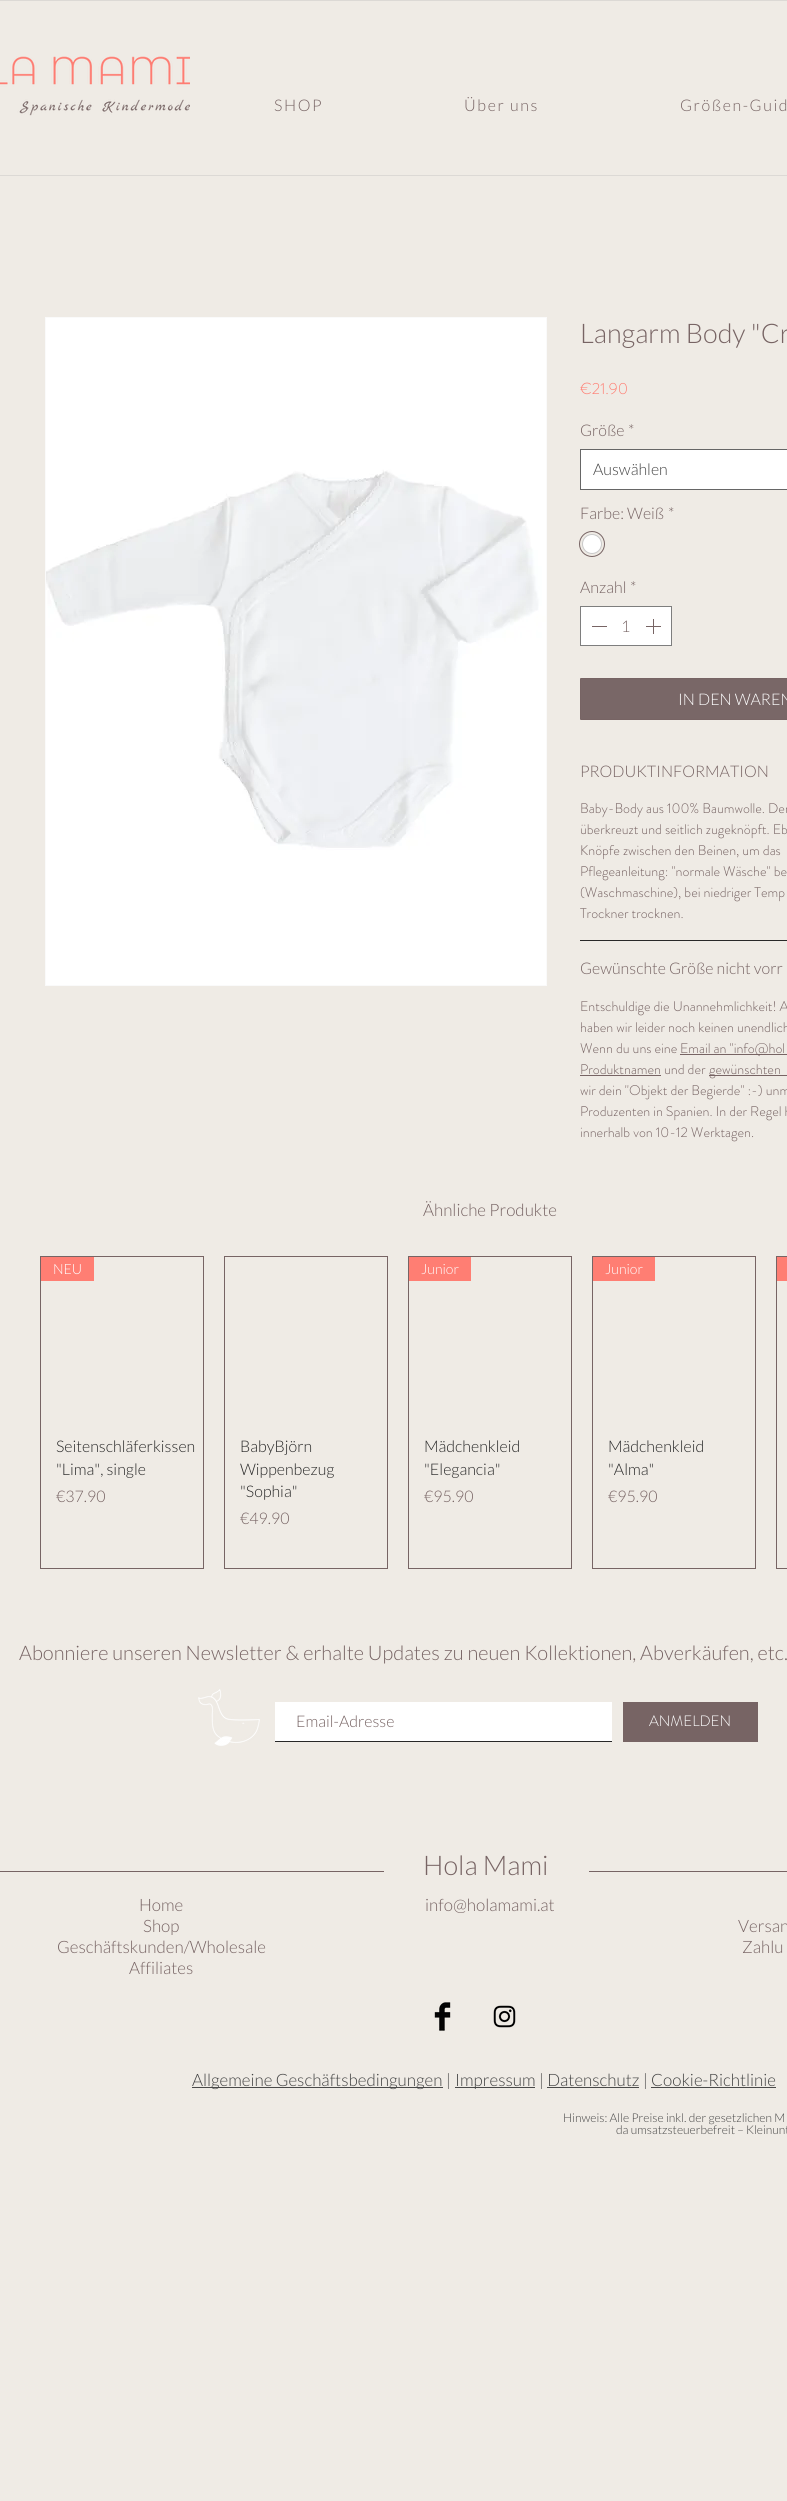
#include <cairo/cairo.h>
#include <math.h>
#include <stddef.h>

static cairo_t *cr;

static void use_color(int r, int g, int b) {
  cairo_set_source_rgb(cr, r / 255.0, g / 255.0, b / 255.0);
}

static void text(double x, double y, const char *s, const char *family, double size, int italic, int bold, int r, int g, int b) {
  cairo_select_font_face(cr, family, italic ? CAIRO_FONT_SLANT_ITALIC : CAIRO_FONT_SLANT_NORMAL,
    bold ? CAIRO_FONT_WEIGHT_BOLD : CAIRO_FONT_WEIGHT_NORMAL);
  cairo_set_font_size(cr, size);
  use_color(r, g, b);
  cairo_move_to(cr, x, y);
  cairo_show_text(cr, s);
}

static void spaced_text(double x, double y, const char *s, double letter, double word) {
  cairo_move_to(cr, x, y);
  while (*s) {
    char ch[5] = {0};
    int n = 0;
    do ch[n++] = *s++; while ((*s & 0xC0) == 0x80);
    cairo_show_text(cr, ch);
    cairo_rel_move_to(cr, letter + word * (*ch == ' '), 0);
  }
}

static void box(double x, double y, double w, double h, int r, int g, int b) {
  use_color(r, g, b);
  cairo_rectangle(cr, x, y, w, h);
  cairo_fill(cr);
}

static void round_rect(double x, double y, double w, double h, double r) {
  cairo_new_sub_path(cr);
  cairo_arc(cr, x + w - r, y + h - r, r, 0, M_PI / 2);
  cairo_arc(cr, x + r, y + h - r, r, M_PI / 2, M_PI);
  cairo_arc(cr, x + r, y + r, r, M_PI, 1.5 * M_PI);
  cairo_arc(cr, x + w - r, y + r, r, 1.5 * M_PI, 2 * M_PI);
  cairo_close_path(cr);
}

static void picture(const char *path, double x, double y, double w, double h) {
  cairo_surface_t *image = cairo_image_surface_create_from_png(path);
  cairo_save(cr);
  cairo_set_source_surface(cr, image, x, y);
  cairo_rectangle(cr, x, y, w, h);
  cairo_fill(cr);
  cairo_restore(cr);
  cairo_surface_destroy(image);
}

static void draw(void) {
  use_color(239, 235, 229);
  cairo_paint(cr);
  box(0, 0, 787, 1, 220, 217, 213);
  box(0, 175, 787, 1, 220, 217, 213);
  picture("img_01.png", 0, 56, 190, 60);
  cairo_rectangle(cr, 45.5, 317.5, 501, 668);
  use_color(250, 250, 250);
  cairo_set_line_width(cr, 1);
  cairo_stroke(cr);
  picture("img_02.png", 46, 318, 500, 667);
  use_color(255, 255, 255);
  cairo_rectangle(cr, 580.5, 449.5, 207, 40);
  cairo_fill_preserve(cr);
  use_color(102, 102, 102);
  cairo_stroke(cr);
  cairo_arc(cr, 592, 544, 12.5, 0, 2 * M_PI);
  use_color(119, 100, 100);
  cairo_stroke(cr);
  use_color(255, 255, 255);
  cairo_arc(cr, 592, 544, 9.5, 0, 2 * M_PI);
  cairo_fill_preserve(cr);
  use_color(201, 201, 201);
  cairo_stroke(cr);
  use_color(255, 255, 255);
  cairo_rectangle(cr, 580.5, 606.5, 91, 39);
  cairo_fill_preserve(cr);
  use_color(126, 126, 126);
  cairo_stroke(cr);
  box(592, 626, 15, 1, 119, 100, 100);
  picture("img_03.png", 646, 619, 15, 15);
  use_color(121, 103, 103);
  round_rect(580.5, 678.5, 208, 41, 0.5);
  cairo_fill_preserve(cr);
  use_color(119, 100, 100);
  cairo_stroke(cr);
  box(580, 940, 207, 1, 40, 40, 40);
  box(680, 1054, 107, 1, 119, 100, 100);
  box(580, 1075, 81, 1, 119, 100, 100);
  box(709, 1075, 78, 1, 119, 100, 100);
  cairo_rectangle(cr, 40.5, 1256.5, 163, 312);
  cairo_stroke(cr);
  box(41, 1257, 53, 24, 255, 126, 115);
  cairo_rectangle(cr, 224.5, 1256.5, 163, 312);
  use_color(119, 100, 100);
  cairo_stroke(cr);
  cairo_rectangle(cr, 408.5, 1256.5, 163, 312);
  cairo_stroke(cr);
  box(409, 1257, 62, 24, 255, 126, 115);
  cairo_rectangle(cr, 592.5, 1256.5, 163, 312);
  use_color(119, 100, 100);
  cairo_stroke(cr);
  box(593, 1257, 62, 24, 255, 126, 115);
  cairo_rectangle(cr, 776.5, 1256.5, 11, 312);
  use_color(119, 100, 100);
  cairo_stroke(cr);
  box(777, 1257, 10, 24, 255, 126, 115);
  picture("img_04.png", 198, 1689, 62, 57);
  box(275, 1702, 337, 39, 255, 255, 255);
  box(275, 1741, 337, 1, 40, 40, 40);
  box(623, 1702, 135, 40, 119, 100, 100);
  box(0, 1871, 384, 1, 119, 100, 100);
  box(589, 1871, 198, 1, 119, 100, 100);
  picture("img_05.png", 434, 2002, 17, 29);
  picture("img_06.png", 493, 2005, 23, 23);
  box(192, 2087, 251, 1, 73, 73, 73);
  box(455, 2087, 80, 1, 73, 73, 73);
  cairo_select_font_face(cr, "Lato Light", CAIRO_FONT_SLANT_NORMAL, CAIRO_FONT_WEIGHT_NORMAL);
  cairo_set_font_size(cr, 16);
  use_color(119, 100, 100);
  spaced_text(274, 111, "SHOP", 1.6, 0);
  spaced_text(464, 111, "Über uns", 1.6, 0);
  spaced_text(680, 111, "Größen-Guid", 1.6, 0);
  text(580, 343, "Langarm Body \"Cr", "Lato Light", 27, 0, 0, 119, 100, 100);
  text(580, 394, "€21.90", "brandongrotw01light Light", 16, 0, 0, 255, 126, 115);
  text(580, 436, "Größe", "Lato Light", 16, 0, 0, 119, 100, 100);
  text(628, 436, "*", "Lato Light", 16, 0, 0, 119, 100, 100);
  text(593, 475, "Auswählen", "Lato Light", 16, 0, 0, 68, 68, 68);
  text(580, 519, "Farbe: Weiß", "Lato Light", 16, 0, 0, 119, 100, 100);
  text(668, 519, "*", "Lato Light", 16, 0, 0, 119, 100, 100);
  text(580, 593, "Anzahl", "Lato Light", 16, 0, 0, 119, 100, 100);
  text(630, 593, "*", "Lato Light", 16, 0, 0, 119, 100, 100);
  text(621, 632, "1", "Lato Light", 16, 0, 0, 119, 100, 100);
  text(678, 705, "IN DEN WAREN", "Lato Light", 16, 0, 0, 255, 255, 255);
  text(580, 777, "PRODUKTINFORMATION", "Lato Light", 16, 0, 0, 119, 100, 100);
  text(580, 813, "Baby-Body aus 100% Baumwolle. Der", "brandongrotw01light Light", 14, 0, 0, 119, 100, 100);
  text(580, 834, "überkreuzt und seitlich zugeknöpft. Eb", "brandongrotw01light Light", 14, 0, 0, 119, 100, 100);
  text(580, 855, "Knöpfe zwischen den Beinen, um das", "brandongrotw01light Light", 14, 0, 0, 119, 100, 100);
  text(580, 876, "Pflegeanleitung: \"normale Wäsche\" be", "brandongrotw01light Light", 14, 0, 0, 119, 100, 100);
  text(580, 897, "(Waschmaschine), bei niedriger Temp", "brandongrotw01light Light", 14, 0, 0, 119, 100, 100);
  text(580, 918, "Trockner trocknen.", "brandongrotw01light Light", 14, 0, 0, 119, 100, 100);
  text(580, 974, "Gewünschte Größe nicht vorr", "Lato Light", 16, 0, 0, 119, 100, 100);
  text(580, 1011, "Entschuldige die Unannehmlichkeit! A", "brandongrotw01light Light", 14, 0, 0, 119, 100, 100);
  text(580, 1032, "haben wir leider noch keinen unendlich", "brandongrotw01light Light", 14, 0, 0, 119, 100, 100);
  text(580, 1053, "Wenn du uns eine", "brandongrotw01light Light", 14, 0, 0, 119, 100, 100);
  text(680, 1053, "Email an \"info@hol", "brandongrotw01light Light", 14, 0, 0, 119, 100, 100);
  text(580, 1074, "Produktnamen und der", "brandongrotw01light Light", 14, 0, 0, 119, 100, 100);
  text(709, 1074, "gewünschten", "brandongrotw01light Light", 14, 0, 0, 119, 100, 100);
  text(580, 1095, "wir dein \"Objekt der Begierde\" :-) unm", "brandongrotw01light Light", 14, 0, 0, 119, 100, 100);
  text(580, 1116, "Produzenten in Spanien. In der Regel h", "brandongrotw01light Light", 14, 0, 0, 119, 100, 100);
  text(580, 1137, "innerhalb von 10-12 Werktagen.", "brandongrotw01light Light", 14, 0, 0, 119, 100, 100);
  text(423, 1216, "Ähnliche Produkte", "Lato Light", 17, 0, 0, 119, 100, 100);
  text(53, 1274, "NEU", "Lato Light", 14, 0, 0, 255, 255, 255);
  text(56, 1452, "Seitenschläferkissen", "Lato Light", 16, 0, 0, 40, 40, 40);
  text(56, 1475, "\"Lima\", single", "Lato Light", 16, 0, 0, 40, 40, 40);
  text(56, 1502, "€37.90", "Lato Light", 16, 0, 0, 119, 100, 100);
  text(240, 1452, "BabyBjörn", "Lato Light", 16, 0, 0, 40, 40, 40);
  text(240, 1475, "Wippenbezug", "Lato Light", 16, 0, 0, 40, 40, 40);
  text(240, 1497, "\"Sophia\"", "Lato Light", 16, 0, 0, 40, 40, 40);
  text(240, 1524, "€49.90", "Lato Light", 16, 0, 0, 119, 100, 100);
  text(421, 1274, "Junior", "Lato Light", 14, 0, 0, 255, 255, 255);
  text(424, 1452, "Mädchenkleid", "Lato Light", 16, 0, 0, 40, 40, 40);
  text(424, 1475, "\"Elegancia\"", "Lato Light", 16, 0, 0, 40, 40, 40);
  text(424, 1502, "€95.90", "Lato Light", 16, 0, 0, 119, 100, 100);
  text(605, 1274, "Junior", "Lato Light", 14, 0, 0, 255, 255, 255);
  text(608, 1452, "Mädchenkleid", "Lato Light", 16, 0, 0, 40, 40, 40);
  text(608, 1475, "\"Alma\"", "Lato Light", 16, 0, 0, 40, 40, 40);
  text(608, 1502, "€95.90", "Lato Light", 16, 0, 0, 119, 100, 100);
  text(19, 1660, "Abonniere unseren Newsletter & erhalte Updates zu neuen Kollektionen, Abverkäufen, etc.", "Lato Light", 20, 0, 0, 119, 100, 100);
  text(296, 1727, "Email-Adresse", "Lato Light", 16, 0, 0, 119, 100, 100);
  text(649, 1726, "ANMELDEN", "brandongrotw01light Light", 15, 0, 0, 255, 255, 255);
  text(423, 1875, "Hola Mami", "Lato Light", 27, 0, 0, 119, 100, 100);
  text(139, 1911, "Home", "Lato Light", 17, 0, 0, 119, 100, 100);
  text(143, 1932, "Shop", "Lato Light", 17, 0, 0, 119, 100, 100);
  text(57, 1953, "Geschäftskunden/Wholesale", "Lato Light", 17, 0, 0, 119, 100, 100);
  text(129, 1974, "Affiliates", "Lato Light", 17, 0, 0, 119, 100, 100);
  text(425, 1911, "info@holamami.at", "Lato Light", 17, 0, 0, 119, 100, 100);
  text(738, 1932, "Versan", "Lato Light", 17, 0, 0, 119, 100, 100);
  text(742, 1953, "Zahlu", "Lato Light", 17, 0, 0, 119, 100, 100);
  text(192, 2086, "Allgemeine Geschäftsbedingungen |", "Lato Light", 17, 0, 0, 68, 68, 68);
  text(455, 2086, "Impressum | Datenschutz | Cookie-Richtlinie", "Lato Light", 17, 0, 0, 68, 68, 68);
  box(547, 2087, 92, 1, 73, 73, 73);
  box(651, 2087, 125, 1, 73, 73, 73);
  text(563, 2122, "Hinweis: Alle Preise inkl. der gesetzlichen M", "Lato Light", 12, 0, 0, 68, 68, 68);
  text(616, 2134, "da umsatzsteuerbefreit – Kleinunt", "Lato Light", 12, 0, 0, 68, 68, 68);
}

int main(void) {
  cairo_surface_t *surface = cairo_image_surface_create(CAIRO_FORMAT_RGB24, 787, 2501);
  cr = cairo_create(surface);
  cairo_font_options_t *options = cairo_font_options_create();
  cairo_font_options_set_hint_metrics(options, CAIRO_HINT_METRICS_OFF);
  cairo_font_options_set_hint_style(options, CAIRO_HINT_STYLE_NONE);
  cairo_set_font_options(cr, options);
  cairo_set_miter_limit(cr, 4);
  draw();
  cairo_surface_write_to_png(surface, "out.png");
  cairo_font_options_destroy(options);
  cairo_destroy(cr);
  cairo_surface_destroy(surface);
  return 0;
}
